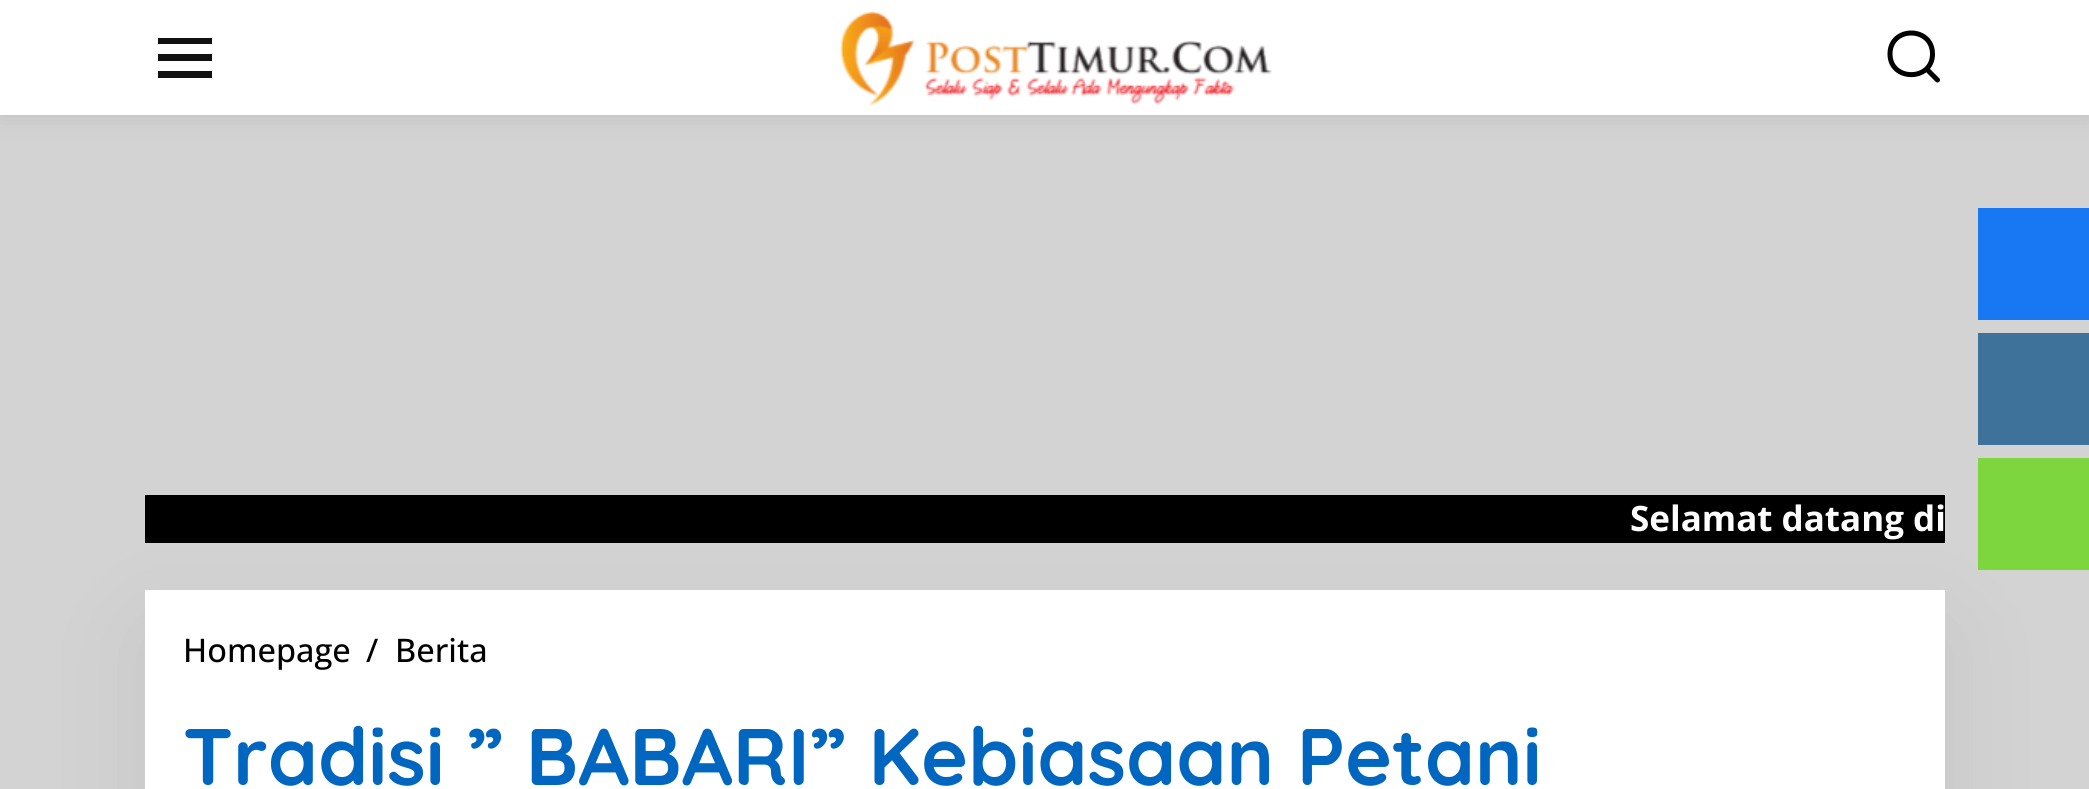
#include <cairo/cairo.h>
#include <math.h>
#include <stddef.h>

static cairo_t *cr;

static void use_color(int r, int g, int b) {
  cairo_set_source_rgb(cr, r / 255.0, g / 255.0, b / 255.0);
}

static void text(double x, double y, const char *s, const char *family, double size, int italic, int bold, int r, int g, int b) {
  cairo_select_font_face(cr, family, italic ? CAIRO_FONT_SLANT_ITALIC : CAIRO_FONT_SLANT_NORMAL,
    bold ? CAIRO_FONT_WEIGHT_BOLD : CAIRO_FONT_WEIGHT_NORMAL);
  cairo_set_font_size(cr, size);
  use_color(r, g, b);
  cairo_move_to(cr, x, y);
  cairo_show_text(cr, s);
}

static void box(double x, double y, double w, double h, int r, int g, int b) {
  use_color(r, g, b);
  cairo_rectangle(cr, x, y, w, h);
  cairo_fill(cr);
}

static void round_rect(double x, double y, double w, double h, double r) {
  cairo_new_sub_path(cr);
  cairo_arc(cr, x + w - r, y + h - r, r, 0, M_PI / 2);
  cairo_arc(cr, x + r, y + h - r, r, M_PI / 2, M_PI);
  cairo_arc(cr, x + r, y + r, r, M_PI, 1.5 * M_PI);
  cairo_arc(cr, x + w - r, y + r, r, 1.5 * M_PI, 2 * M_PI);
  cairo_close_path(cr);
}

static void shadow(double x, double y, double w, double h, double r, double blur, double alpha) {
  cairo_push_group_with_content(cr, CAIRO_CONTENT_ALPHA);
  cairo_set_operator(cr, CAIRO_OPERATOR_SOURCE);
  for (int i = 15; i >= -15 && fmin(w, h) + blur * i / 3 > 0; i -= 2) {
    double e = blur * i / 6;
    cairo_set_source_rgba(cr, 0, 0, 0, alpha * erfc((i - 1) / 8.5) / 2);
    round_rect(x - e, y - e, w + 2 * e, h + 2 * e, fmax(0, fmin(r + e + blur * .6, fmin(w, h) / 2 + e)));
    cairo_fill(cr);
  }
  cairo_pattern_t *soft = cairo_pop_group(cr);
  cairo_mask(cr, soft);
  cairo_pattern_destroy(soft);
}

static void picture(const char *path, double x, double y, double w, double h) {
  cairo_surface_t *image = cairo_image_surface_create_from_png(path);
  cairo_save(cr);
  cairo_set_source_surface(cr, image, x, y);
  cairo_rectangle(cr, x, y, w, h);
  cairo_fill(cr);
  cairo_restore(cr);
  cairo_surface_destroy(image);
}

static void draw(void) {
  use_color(211, 211, 211);
  cairo_paint(cr);
  use_color(0, 0, 0);
  shadow(0, 0, 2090, 115, 0, 12.5, 0.1);
  box(0, 0, 2089, 115, 255, 255, 255);
  use_color(17, 17, 17);
  cairo_new_path(cr);
  cairo_move_to(cr, 158, 38);
  cairo_line_to(cr, 212, 38);
  cairo_line_to(cr, 212, 44);
  cairo_line_to(cr, 158, 44);
  cairo_close_path(cr);
  cairo_move_to(cr, 158, 54);
  cairo_line_to(cr, 212, 54);
  cairo_line_to(cr, 212, 61);
  cairo_line_to(cr, 158, 61);
  cairo_close_path(cr);
  cairo_move_to(cr, 158, 71);
  cairo_line_to(cr, 212, 71);
  cairo_line_to(cr, 212, 78);
  cairo_line_to(cr, 158, 78);
  cairo_close_path(cr);
  cairo_fill(cr);
  picture("img_01.png", 839, 11, 433, 96);
  cairo_new_path(cr);
  cairo_move_to(cr, 1937.5, 80);
  cairo_line_to(cr, 1926.5, 69);
  cairo_move_to(cr, 1932.5, 54);
  cairo_curve_to(cr, 1932.5, 81.5, 1890, 81.5, 1890, 54);
  cairo_curve_to(cr, 1890, 26, 1932.5, 26, 1932.5, 54);
  cairo_close_path(cr);
  use_color(0, 0, 0);
  cairo_set_line_width(cr, 5);
  cairo_set_line_cap(cr, CAIRO_LINE_CAP_ROUND);
  cairo_stroke(cr);
  box(145, 495, 1800, 48, 0, 0, 0);
  box(1978, 208, 111, 112, 24, 119, 242);
  box(1978, 333, 111, 112, 63, 114, 155);
  use_color(0, 0, 0);
  shadow(145, 630, 1800, 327, 0, 56, 0.07);
  box(1978, 458, 111, 112, 125, 214, 62);
  box(145, 590, 1800, 199, 255, 255, 255);
  text(1630, 531, "Selamat datang di", "Open Sans", 35, 0, 1, 255, 255, 255);
  text(183, 662, "Homepage", "Open Sans Medium", 32.5, 0, 0, 0, 0, 0);
  text(366, 662, "/", "Open Sans Medium", 32.5, 0, 0, 0, 0, 0);
  text(395, 662, "Berita", "Open Sans Medium", 32.5, 0, 0, 0, 0, 0);
  text(183, 785, "Tradisi ” BABARI” Kebiasaan Petani", "Quicksand", 80, 0, 1, 0, 102, 191);
}

int main(void) {
  cairo_surface_t *surface = cairo_image_surface_create(CAIRO_FORMAT_RGB24, 2089, 789);
  cr = cairo_create(surface);
  cairo_font_options_t *options = cairo_font_options_create();
  cairo_font_options_set_hint_metrics(options, CAIRO_HINT_METRICS_OFF);
  cairo_font_options_set_hint_style(options, CAIRO_HINT_STYLE_NONE);
  cairo_set_font_options(cr, options);
  cairo_set_miter_limit(cr, 4);
  draw();
  cairo_surface_write_to_png(surface, "out.png");
  cairo_font_options_destroy(options);
  cairo_destroy(cr);
  cairo_surface_destroy(surface);
  return 0;
}
